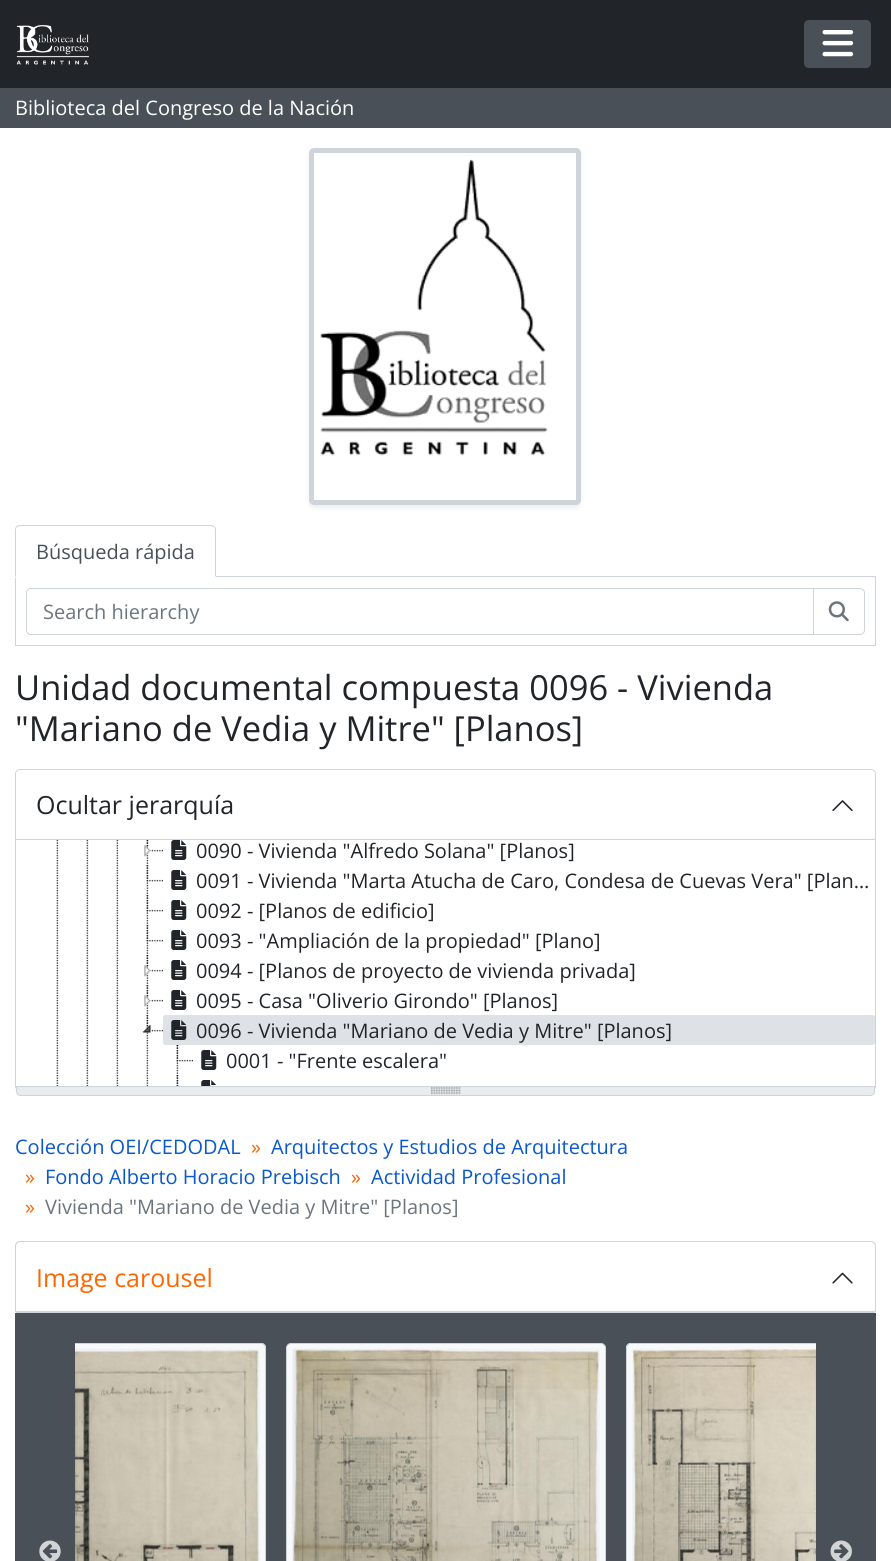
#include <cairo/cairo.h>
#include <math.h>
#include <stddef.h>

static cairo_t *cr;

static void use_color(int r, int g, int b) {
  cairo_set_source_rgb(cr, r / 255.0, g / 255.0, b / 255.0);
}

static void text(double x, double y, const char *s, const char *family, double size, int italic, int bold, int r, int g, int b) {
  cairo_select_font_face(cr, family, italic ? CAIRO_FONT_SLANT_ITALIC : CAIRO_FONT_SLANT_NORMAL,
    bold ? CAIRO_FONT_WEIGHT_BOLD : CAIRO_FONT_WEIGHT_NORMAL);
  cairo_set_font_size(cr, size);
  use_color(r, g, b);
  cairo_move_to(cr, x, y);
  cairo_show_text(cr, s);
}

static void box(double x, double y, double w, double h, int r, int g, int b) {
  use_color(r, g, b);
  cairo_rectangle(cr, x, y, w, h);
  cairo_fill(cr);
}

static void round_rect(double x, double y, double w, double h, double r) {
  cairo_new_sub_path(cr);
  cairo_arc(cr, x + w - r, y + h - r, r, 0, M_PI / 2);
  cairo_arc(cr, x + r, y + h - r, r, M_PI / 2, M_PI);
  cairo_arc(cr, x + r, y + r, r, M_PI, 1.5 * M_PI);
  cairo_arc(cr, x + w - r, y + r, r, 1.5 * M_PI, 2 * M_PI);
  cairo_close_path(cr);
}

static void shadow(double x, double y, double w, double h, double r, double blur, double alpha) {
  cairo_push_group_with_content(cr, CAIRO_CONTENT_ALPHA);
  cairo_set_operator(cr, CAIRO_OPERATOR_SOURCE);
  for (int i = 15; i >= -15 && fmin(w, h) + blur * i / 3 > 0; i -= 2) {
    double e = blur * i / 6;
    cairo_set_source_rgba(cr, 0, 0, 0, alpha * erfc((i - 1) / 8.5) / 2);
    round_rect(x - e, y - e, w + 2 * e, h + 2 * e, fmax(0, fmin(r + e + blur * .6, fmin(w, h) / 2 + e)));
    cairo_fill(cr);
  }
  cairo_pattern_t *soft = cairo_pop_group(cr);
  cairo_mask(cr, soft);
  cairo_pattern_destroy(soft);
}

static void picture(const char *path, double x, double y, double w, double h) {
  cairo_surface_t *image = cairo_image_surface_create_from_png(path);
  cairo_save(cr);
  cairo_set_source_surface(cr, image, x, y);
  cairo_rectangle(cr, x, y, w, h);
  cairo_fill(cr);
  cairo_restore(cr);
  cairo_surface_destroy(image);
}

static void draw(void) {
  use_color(255, 255, 255);
  cairo_paint(cr);
  box(0, 0, 891, 88, 33, 37, 41);
  picture("img_01.png", 16, 25, 74, 40);
  use_color(73, 80, 87);
  round_rect(804.5, 20.5, 66, 47, 4.5);
  cairo_fill_preserve(cr);
  cairo_set_line_width(cr, 1);
  cairo_stroke(cr);
  picture("img_02.png", 822, 30, 32, 27);
  box(0, 88, 891, 40, 73, 80, 87);
  use_color(0, 0, 0);
  shadow(309, 150, 272, 358, 5, 2.5, 0.07);
  use_color(255, 255, 255);
  round_rect(311.5, 150.5, 267, 352, 2.5);
  cairo_fill_preserve(cr);
  use_color(206, 212, 218);
  cairo_set_line_width(cr, 5);
  cairo_stroke(cr);
  picture("img_03.png", 320, 159, 228, 297);
  cairo_rectangle(cr, 15.5, 576.5, 860, 69);
  cairo_set_line_width(cr, 1);
  cairo_stroke(cr);
  use_color(255, 255, 255);
  cairo_new_path(cr);
  cairo_move_to(cr, 20, 525);
  cairo_line_to(cr, 211, 525);
  cairo_curve_to(cr, 214, 525, 216, 527, 216, 530);
  cairo_line_to(cr, 216, 578);
  cairo_line_to(cr, 15, 578);
  cairo_line_to(cr, 15, 530);
  cairo_curve_to(cr, 15, 527, 17, 525, 20, 525);
  cairo_close_path(cr);
  cairo_fill(cr);
  use_color(206, 212, 218);
  cairo_new_path(cr);
  cairo_move_to(cr, 20, 525);
  cairo_curve_to(cr, 18, 525, 17, 526, 16, 526);
  cairo_line_to(cr, 17, 527);
  cairo_line_to(cr, 20, 526);
  cairo_line_to(cr, 211, 526);
  cairo_line_to(cr, 214, 527);
  cairo_line_to(cr, 215, 527);
  cairo_curve_to(cr, 214, 526, 213, 525, 211, 525);
  cairo_close_path(cr);
  cairo_fill(cr);
  cairo_new_path(cr);
  cairo_move_to(cr, 215, 527);
  cairo_curve_to(cr, 216, 527, 216, 529, 216, 530);
  cairo_line_to(cr, 216, 577);
  cairo_line_to(cr, 215, 576);
  cairo_line_to(cr, 215, 530);
  cairo_curve_to(cr, 215, 529, 215, 528, 214, 527);
  cairo_close_path(cr);
  cairo_fill(cr);
  use_color(255, 255, 255);
  cairo_new_path(cr);
  cairo_move_to(cr, 216, 578);
  cairo_line_to(cr, 15, 578);
  cairo_line_to(cr, 16, 576);
  cairo_line_to(cr, 215, 576);
  cairo_close_path(cr);
  cairo_fill(cr);
  use_color(206, 212, 218);
  cairo_new_path(cr);
  cairo_move_to(cr, 15, 578);
  cairo_line_to(cr, 16, 576);
  cairo_line_to(cr, 16, 530);
  cairo_curve_to(cr, 16, 529, 16, 528, 17, 527);
  cairo_line_to(cr, 16, 526);
  cairo_curve_to(cr, 16, 527, 15, 528, 15, 530);
  cairo_close_path(cr);
  cairo_fill(cr);
  cairo_new_path(cr);
  cairo_move_to(cr, 31, 588.5);
  cairo_line_to(cr, 813.5, 588.5);
  cairo_line_to(cr, 813.5, 634.5);
  cairo_line_to(cr, 31, 634.5);
  cairo_curve_to(cr, 28.5, 634.5, 26.5, 632.5, 26.5, 630);
  cairo_line_to(cr, 26.5, 593);
  cairo_curve_to(cr, 26.5, 590.5, 28.5, 588.5, 31, 588.5);
  cairo_close_path(cr);
  cairo_stroke(cr);
  use_color(255, 255, 255);
  cairo_new_path(cr);
  cairo_move_to(cr, 813.5, 588.5);
  cairo_line_to(cr, 860, 588.5);
  cairo_curve_to(cr, 862.5, 588.5, 864.5, 590.5, 864.5, 593);
  cairo_line_to(cr, 864.5, 630);
  cairo_curve_to(cr, 864.5, 632.5, 862.5, 634.5, 860, 634.5);
  cairo_line_to(cr, 813.5, 634.5);
  cairo_close_path(cr);
  cairo_fill_preserve(cr);
  use_color(206, 212, 218);
  cairo_stroke(cr);
  picture("img_04.png", 828, 601, 21, 21);
  round_rect(15.5, 769.5, 860, 321, 4.5);
  cairo_stroke(cr);
  use_color(255, 255, 255);
  cairo_new_path(cr);
  cairo_move_to(cr, 20, 770);
  cairo_line_to(cr, 871, 770);
  cairo_curve_to(cr, 873, 770, 875, 772, 875, 774);
  cairo_line_to(cr, 875, 840);
  cairo_line_to(cr, 16, 840);
  cairo_line_to(cr, 16, 774);
  cairo_curve_to(cr, 16, 772, 18, 770, 20, 770);
  cairo_close_path(cr);
  cairo_fill(cr);
  box(16, 839, 859, 1, 206, 212, 218);
  picture("img_05.png", 832, 800, 21, 11);
  picture("img_06.png", 56, 840, 3, 246);
  picture("img_06.png", 86, 840, 3, 246);
  picture("img_06.png", 116, 840, 3, 246);
  picture("img_07.png", 146, 840, 3, 24);
  picture("img_08.png", 144, 840, 19, 17);
  picture("img_09.png", 171, 840, 16, 20);
  picture("img_10.png", 146, 865, 3, 29);
  picture("img_11.png", 146, 865, 17, 17);
  picture("img_09.png", 171, 870, 16, 20);
  picture("img_10.png", 146, 895, 3, 29);
  picture("img_11.png", 146, 895, 17, 17);
  picture("img_09.png", 171, 900, 16, 20);
  picture("img_10.png", 146, 925, 3, 29);
  picture("img_11.png", 146, 925, 17, 17);
  picture("img_09.png", 171, 930, 16, 20);
  picture("img_10.png", 146, 955, 3, 29);
  picture("img_12.png", 144, 955, 19, 22);
  picture("img_09.png", 171, 960, 16, 20);
  picture("img_10.png", 146, 985, 3, 29);
  picture("img_12.png", 144, 985, 19, 22);
  picture("img_09.png", 171, 990, 16, 20);
  picture("img_13.png", 146, 1015, 3, 71);
  picture("img_14.png", 142, 1015, 21, 18);
  use_color(222, 226, 230);
  round_rect(163, 1015, 712, 30, 2.5);
  cairo_fill(cr);
  picture("img_15.png", 171, 1020, 16, 20);
  picture("img_10.png", 176, 1045, 3, 29);
  picture("img_16.png", 176, 1045, 17, 17);
  picture("img_09.png", 201, 1050, 16, 20);
  picture("img_17.png", 176, 1075, 3, 11);
  picture("img_18.png", 176, 1075, 3, 11);
  picture("img_19.png", 201, 1080, 16, 6);
  use_color(233, 236, 239);
  cairo_new_path(cr);
  cairo_move_to(cr, 16, 1086);
  cairo_line_to(cr, 875, 1086);
  cairo_line_to(cr, 875, 1091);
  cairo_curve_to(cr, 875, 1094, 873, 1096, 870, 1096);
  cairo_line_to(cr, 21, 1096);
  cairo_curve_to(cr, 18, 1096, 16, 1094, 16, 1091);
  cairo_close_path(cr);
  cairo_fill(cr);
  picture("img_20.png", 431, 1087, 30, 8);
  cairo_new_path(cr);
  cairo_move_to(cr, 16.5, 1086.5);
  cairo_line_to(cr, 874.5, 1086.5);
  cairo_line_to(cr, 874.5, 1091);
  cairo_curve_to(cr, 874.5, 1093.5, 872.5, 1095.5, 870, 1095.5);
  cairo_line_to(cr, 21, 1095.5);
  cairo_curve_to(cr, 18.5, 1095.5, 16.5, 1093.5, 16.5, 1091);
  cairo_close_path(cr);
  use_color(206, 212, 218);
  cairo_stroke(cr);
  cairo_set_fill_rule(cr, CAIRO_FILL_RULE_EVEN_ODD);
  cairo_new_path(cr);
  cairo_move_to(cr, 20, 1241);
  cairo_line_to(cr, 871, 1241);
  cairo_curve_to(cr, 874, 1241, 876, 1243, 876, 1246);
  cairo_line_to(cr, 876, 1312);
  cairo_line_to(cr, 15, 1312);
  cairo_line_to(cr, 15, 1246);
  cairo_curve_to(cr, 15, 1243, 17, 1241, 20, 1241);
  cairo_close_path(cr);
  cairo_move_to(cr, 20, 1242);
  cairo_line_to(cr, 871, 1242);
  cairo_curve_to(cr, 873, 1242, 875, 1244, 875, 1246);
  cairo_line_to(cr, 875, 1312);
  cairo_line_to(cr, 16, 1312);
  cairo_line_to(cr, 16, 1246);
  cairo_curve_to(cr, 16, 1244, 18, 1242, 20, 1242);
  cairo_close_path(cr);
  cairo_fill(cr);
  box(16, 1311, 859, 2, 206, 212, 218);
  picture("img_21.png", 832, 1272, 21, 12);
  box(15, 1313, 861, 248, 73, 80, 87);
  use_color(248, 249, 250);
  cairo_new_path(cr);
  cairo_move_to(cr, 75, 1343);
  cairo_line_to(cr, 261, 1343);
  cairo_curve_to(cr, 264, 1343, 266, 1345, 266, 1348);
  cairo_line_to(cr, 266, 1561);
  cairo_curve_to(cr, 266, 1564, 264, 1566, 261, 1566);
  cairo_line_to(cr, 75, 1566);
  cairo_close_path(cr);
  cairo_fill(cr);
  picture("img_25.png", 39, 1540, 22, 21);
  cairo_save(cr);
  cairo_set_fill_rule(cr, CAIRO_FILL_RULE_WINDING);
  cairo_rectangle(cr, 75, 1343, 741, 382);
  cairo_clip(cr);
  round_rect(-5.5, 1343.5, 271, 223, 4.5);
  use_color(206, 212, 218);
  cairo_stroke(cr);
  cairo_restore(cr);
  picture("img_22.png", 75, 1348, 185, 213);
  round_rect(286.5, 1343.5, 319, 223, 4.5);
  cairo_fill_preserve(cr);
  use_color(206, 212, 218);
  cairo_stroke(cr);
  picture("img_23.png", 292, 1348, 308, 213);
  use_color(248, 249, 250);
  cairo_new_path(cr);
  cairo_move_to(cr, 631, 1343);
  cairo_line_to(cr, 816, 1343);
  cairo_line_to(cr, 816, 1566);
  cairo_line_to(cr, 631, 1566);
  cairo_curve_to(cr, 628, 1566, 626, 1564, 626, 1561);
  cairo_line_to(cr, 626, 1348);
  cairo_curve_to(cr, 626, 1345, 628, 1343, 631, 1343);
  cairo_close_path(cr);
  cairo_fill(cr);
  cairo_save(cr);
  cairo_set_fill_rule(cr, CAIRO_FILL_RULE_WINDING);
  cairo_rectangle(cr, 75, 1343, 741, 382);
  cairo_clip(cr);
  round_rect(626.5, 1343.5, 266, 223, 4.5);
  use_color(206, 212, 218);
  cairo_stroke(cr);
  cairo_restore(cr);
  picture("img_24.png", 632, 1348, 184, 213);
  picture("img_26.png", 830, 1540, 22, 21);
  text(15, 115, "Biblioteca del Congreso de la Nación", "Open Sans", 20, 0, 0, 255, 255, 255);
  text(36, 559, "Búsqueda rápida", "Open Sans", 20, 0, 0, 73, 80, 87);
  text(43, 619, "Search hierarchy", "Open Sans", 20, 0, 0, 108, 117, 125);
  text(15, 700, "Unidad documental compuesta 0096 - Vivienda", "Open Sans", 34.5, 0, 0, 33, 37, 41);
  text(15, 741, "\"Mariano de Vedia y Mitre\" [Planos]", "Open Sans", 34.5, 0, 0, 33, 37, 41);
  text(36, 814, "Ocultar jerarquía", "Open Sans", 25, 0, 0, 33, 37, 41);
  text(196, 858, "0090 - Vivienda \"Alfredo Solana\" [Planos]", "Open Sans", 20, 0, 0, 33, 37, 41);
  text(196, 888, "0091 - Vivienda \"Marta Atucha de Caro, Condesa de Cuevas Vera\" [Plan…", "Open Sans", 20, 0, 0, 33, 37, 41);
  text(196, 918, "0092 - [Planos de edificio]", "Open Sans", 20, 0, 0, 33, 37, 41);
  text(196, 948, "0093 - \"Ampliación de la propiedad\" [Plano]", "Open Sans", 20, 0, 0, 33, 37, 41);
  text(196, 978, "0094 - [Planos de proyecto de vivienda privada]", "Open Sans", 20, 0, 0, 33, 37, 41);
  text(196, 1008, "0095 - Casa \"Oliverio Girondo\" [Planos]", "Open Sans", 20, 0, 0, 33, 37, 41);
  text(196, 1038, "0096 - Vivienda \"Mariano de Vedia y Mitre\" [Planos]", "Open Sans", 20, 0, 0, 33, 37, 41);
  text(226, 1068, "0001 - \"Frente escalera\"", "Open Sans", 20, 0, 0, 33, 37, 41);
  text(15, 1154, "Colección OEI/CEDODAL", "Open Sans", 20, 0, 0, 10, 88, 202);
  text(251, 1154, "»", "Open Sans", 20, 0, 0, 255, 102, 0);
  text(271, 1154, "Arquitectos y Estudios de Arquitectura", "Open Sans", 20, 0, 0, 10, 88, 202);
  text(25, 1184, "»", "Open Sans", 20, 0, 0, 255, 102, 0);
  text(45, 1184, "Fondo Alberto Horacio Prebisch", "Open Sans", 20, 0, 0, 10, 88, 202);
  text(351, 1184, "»", "Open Sans", 20, 0, 0, 255, 102, 0);
  text(371, 1184, "Actividad Profesional", "Open Sans", 20, 0, 0, 10, 88, 202);
  text(25, 1214, "»", "Open Sans", 20, 0, 0, 255, 102, 0);
  text(45, 1214, "Vivienda \"Mariano de Vedia y Mitre\" [Planos]", "Open Sans", 20, 0, 0, 108, 117, 125);
  text(36, 1287, "Image carousel", "Open Sans", 25, 0, 0, 255, 102, 0);
}

int main(void) {
  cairo_surface_t *surface = cairo_image_surface_create(CAIRO_FORMAT_RGB24, 891, 1561);
  cr = cairo_create(surface);
  cairo_font_options_t *options = cairo_font_options_create();
  cairo_font_options_set_hint_metrics(options, CAIRO_HINT_METRICS_OFF);
  cairo_font_options_set_hint_style(options, CAIRO_HINT_STYLE_NONE);
  cairo_set_font_options(cr, options);
  cairo_set_miter_limit(cr, 4);
  draw();
  cairo_surface_write_to_png(surface, "out.png");
  cairo_font_options_destroy(options);
  cairo_destroy(cr);
  cairo_surface_destroy(surface);
  return 0;
}
